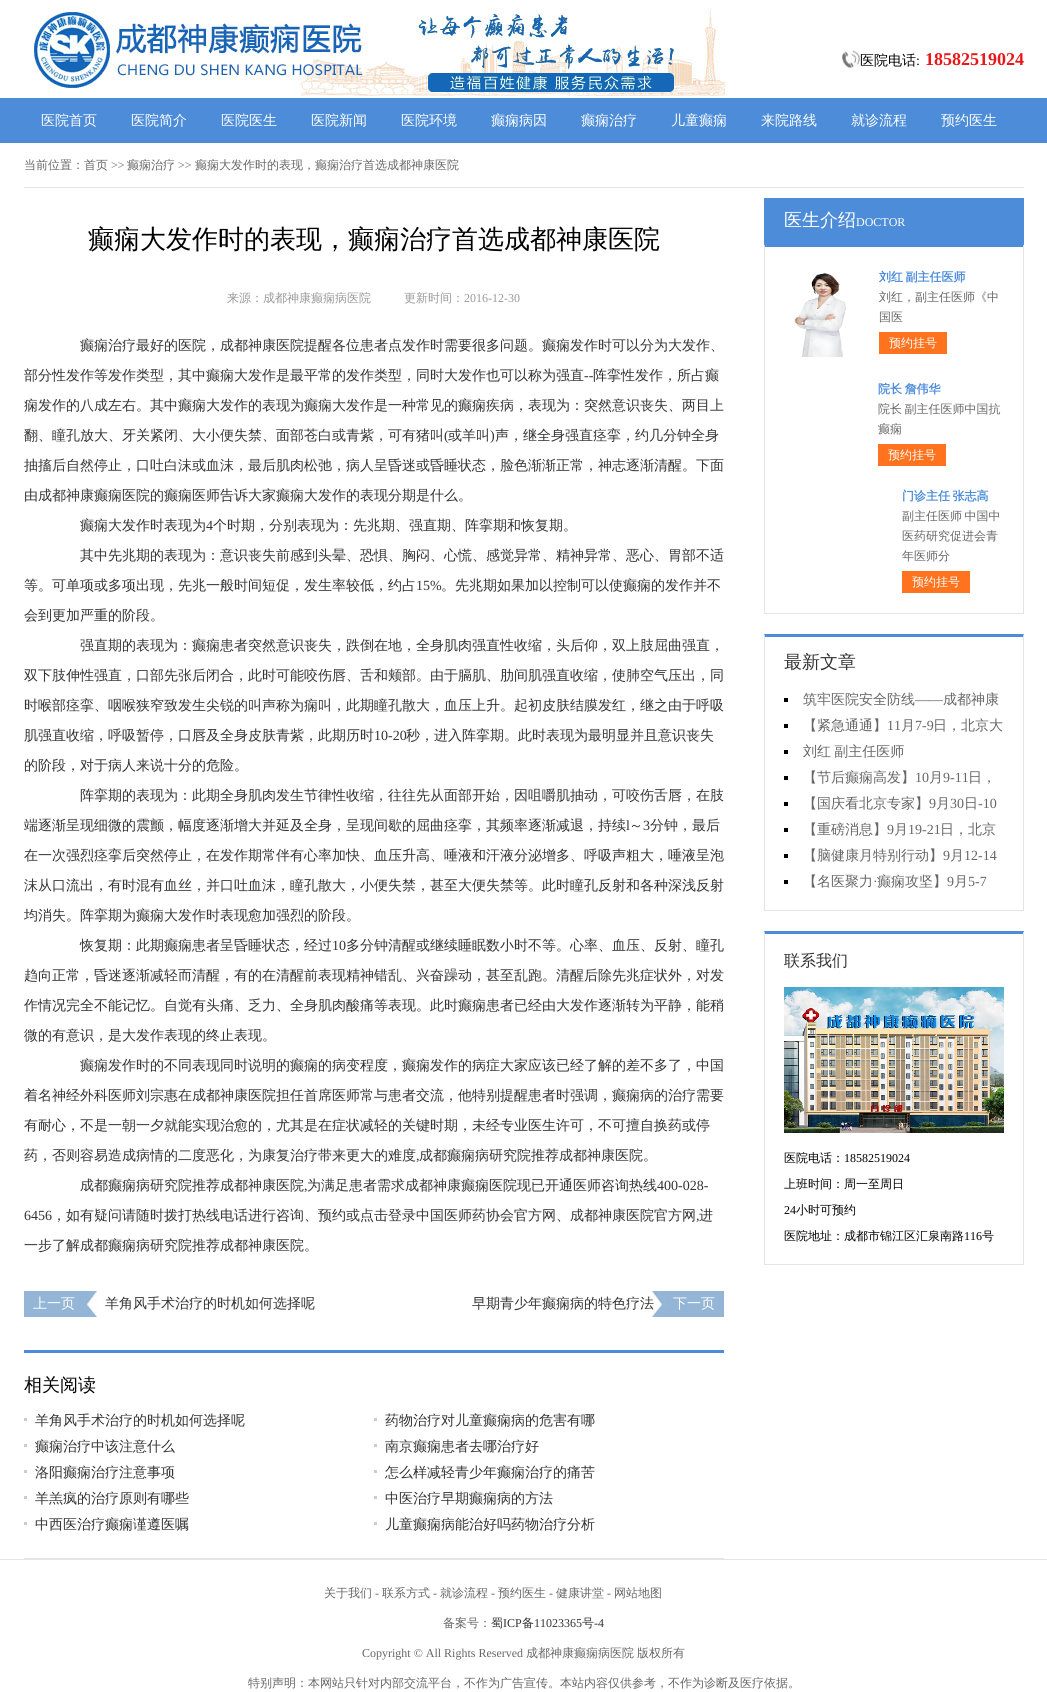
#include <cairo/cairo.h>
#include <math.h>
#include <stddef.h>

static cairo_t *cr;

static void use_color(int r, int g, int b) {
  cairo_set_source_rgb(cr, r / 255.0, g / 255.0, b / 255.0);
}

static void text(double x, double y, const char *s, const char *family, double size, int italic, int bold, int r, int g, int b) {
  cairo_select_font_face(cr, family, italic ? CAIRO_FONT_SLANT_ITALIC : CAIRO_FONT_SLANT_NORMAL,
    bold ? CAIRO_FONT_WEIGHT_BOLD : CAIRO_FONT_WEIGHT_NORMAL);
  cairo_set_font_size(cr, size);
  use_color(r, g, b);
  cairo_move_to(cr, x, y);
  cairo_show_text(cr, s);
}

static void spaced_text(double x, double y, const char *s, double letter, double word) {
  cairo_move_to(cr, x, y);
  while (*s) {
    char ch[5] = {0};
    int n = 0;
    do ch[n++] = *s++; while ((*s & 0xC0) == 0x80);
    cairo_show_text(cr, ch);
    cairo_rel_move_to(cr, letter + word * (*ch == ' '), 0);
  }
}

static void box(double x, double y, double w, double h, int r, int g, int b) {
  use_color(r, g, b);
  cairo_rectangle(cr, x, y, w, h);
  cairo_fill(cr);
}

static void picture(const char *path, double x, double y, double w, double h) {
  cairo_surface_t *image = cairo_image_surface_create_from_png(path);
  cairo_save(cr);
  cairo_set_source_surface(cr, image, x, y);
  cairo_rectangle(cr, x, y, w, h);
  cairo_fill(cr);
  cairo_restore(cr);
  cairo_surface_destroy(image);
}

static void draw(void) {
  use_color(255, 255, 255);
  cairo_paint(cr);
  picture("img_01.png", 32, 8, 696, 88);
  picture("img_02.png", 842, 50, 18, 18);
  box(0, 98, 1047, 45, 76, 140, 217);
  box(24, 187, 1000, 1, 228, 228, 228);
  box(24, 1350, 700, 3, 76, 140, 217);
  picture("img_03.png", 24, 1291, 73, 26);
  picture("img_04.png", 652, 1291, 72, 26);
  box(24, 1558, 700, 1, 228, 228, 228);
  box(24, 1418, 3, 3, 204, 204, 204);
  box(374, 1418, 3, 3, 204, 204, 204);
  box(24, 1444, 3, 3, 204, 204, 204);
  box(374, 1444, 3, 3, 204, 204, 204);
  box(24, 1470, 3, 3, 204, 204, 204);
  box(374, 1470, 3, 3, 204, 204, 204);
  box(24, 1496, 3, 3, 204, 204, 204);
  box(374, 1496, 3, 3, 204, 204, 204);
  box(24, 1522, 3, 3, 204, 204, 204);
  box(374, 1522, 3, 3, 204, 204, 204);
  box(764, 198, 260, 47, 76, 140, 217);
  cairo_new_path(cr);
  cairo_move_to(cr, 764, 244);
  cairo_line_to(cr, 1024, 244);
  cairo_line_to(cr, 1023, 247);
  cairo_line_to(cr, 765, 247);
  cairo_close_path(cr);
  cairo_fill(cr);
  use_color(228, 228, 228);
  cairo_new_path(cr);
  cairo_move_to(cr, 1024, 244);
  cairo_line_to(cr, 1024, 614);
  cairo_line_to(cr, 1023, 613);
  cairo_line_to(cr, 1023, 247);
  cairo_close_path(cr);
  cairo_fill(cr);
  box(764, 613, 260, 1, 228, 228, 228);
  cairo_new_path(cr);
  cairo_move_to(cr, 764, 614);
  cairo_line_to(cr, 764, 244);
  cairo_line_to(cr, 765, 247);
  cairo_line_to(cr, 765, 613);
  cairo_close_path(cr);
  cairo_fill(cr);
  picture("img_05.png", 794, 273, 52, 84);
  box(879, 332, 68, 22, 255, 115, 30);
  box(878, 444, 68, 22, 255, 115, 30);
  box(902, 571, 68, 22, 255, 115, 30);
  use_color(76, 140, 217);
  cairo_new_path(cr);
  cairo_move_to(cr, 764, 634);
  cairo_line_to(cr, 1024, 634);
  cairo_line_to(cr, 1023, 637);
  cairo_line_to(cr, 765, 637);
  cairo_close_path(cr);
  cairo_fill(cr);
  use_color(228, 228, 228);
  cairo_new_path(cr);
  cairo_move_to(cr, 1024, 634);
  cairo_line_to(cr, 1024, 911);
  cairo_line_to(cr, 1023, 910);
  cairo_line_to(cr, 1023, 637);
  cairo_close_path(cr);
  cairo_fill(cr);
  box(764, 910, 260, 1, 228, 228, 228);
  cairo_new_path(cr);
  cairo_move_to(cr, 764, 911);
  cairo_line_to(cr, 764, 634);
  cairo_line_to(cr, 765, 637);
  cairo_line_to(cr, 765, 910);
  cairo_close_path(cr);
  cairo_fill(cr);
  box(784, 698, 4, 4, 0, 0, 0);
  box(784, 724, 4, 4, 0, 0, 0);
  box(784, 750, 4, 4, 0, 0, 0);
  box(784, 776, 4, 4, 0, 0, 0);
  box(784, 802, 4, 4, 0, 0, 0);
  box(784, 828, 4, 4, 0, 0, 0);
  box(784, 854, 4, 4, 0, 0, 0);
  box(784, 880, 4, 4, 0, 0, 0);
  use_color(76, 140, 217);
  cairo_new_path(cr);
  cairo_move_to(cr, 764, 931);
  cairo_line_to(cr, 1024, 931);
  cairo_line_to(cr, 1023, 934);
  cairo_line_to(cr, 765, 934);
  cairo_close_path(cr);
  cairo_fill(cr);
  use_color(228, 228, 228);
  cairo_new_path(cr);
  cairo_move_to(cr, 1024, 931);
  cairo_line_to(cr, 1024, 1265);
  cairo_line_to(cr, 1023, 1264);
  cairo_line_to(cr, 1023, 934);
  cairo_close_path(cr);
  cairo_fill(cr);
  box(764, 1264, 260, 1, 228, 228, 228);
  cairo_new_path(cr);
  cairo_move_to(cr, 764, 1265);
  cairo_line_to(cr, 764, 931);
  cairo_line_to(cr, 765, 934);
  cairo_line_to(cr, 765, 1264);
  cairo_close_path(cr);
  cairo_fill(cr);
  picture("img_06.png", 784, 987, 220, 146);
  box(0, 1559, 1047, 1, 228, 228, 228);
  text(860, 65, "医院电话", "WenQuanYi Zen Hei Medium", 14, 0, 0, 0, 0, 0);
  text(916, 65, ":", "Liberation Serif", 14, 0, 0, 0, 0, 0);
  text(925, 65, "18582519024", "Liberation Serif", 18, 0, 1, 232, 23, 26);
  text(41, 125, "医院首页", "WenQuanYi Zen Hei Medium", 14, 0, 0, 255, 255, 255);
  text(131, 125, "医院简介", "WenQuanYi Zen Hei Medium", 14, 0, 0, 255, 255, 255);
  text(221, 125, "医院医生", "WenQuanYi Zen Hei Medium", 14, 0, 0, 255, 255, 255);
  text(311, 125, "医院新闻", "WenQuanYi Zen Hei Medium", 14, 0, 0, 255, 255, 255);
  text(401, 125, "医院环境", "WenQuanYi Zen Hei Medium", 14, 0, 0, 255, 255, 255);
  text(491, 125, "癫痫病因", "WenQuanYi Zen Hei Medium", 14, 0, 0, 255, 255, 255);
  text(581, 125, "癫痫治疗", "WenQuanYi Zen Hei Medium", 14, 0, 0, 255, 255, 255);
  text(671, 125, "儿童癫痫", "WenQuanYi Zen Hei Medium", 14, 0, 0, 255, 255, 255);
  text(761, 125, "来院路线", "WenQuanYi Zen Hei Medium", 14, 0, 0, 255, 255, 255);
  text(851, 125, "就诊流程", "WenQuanYi Zen Hei Medium", 14, 0, 0, 255, 255, 255);
  text(941, 125, "预约医生", "WenQuanYi Zen Hei Medium", 14, 0, 0, 255, 255, 255);
  text(24, 169, "当前位置：首页", "WenQuanYi Zen Hei Medium", 12, 0, 0, 102, 102, 102);
  text(111, 169, ">>", "Liberation Serif", 12, 0, 0, 102, 102, 102);
  text(127, 169, "癫痫治疗", "WenQuanYi Zen Hei Medium", 12, 0, 0, 102, 102, 102);
  text(178, 169, ">>", "Liberation Serif", 12, 0, 0, 102, 102, 102);
  text(195, 169, "癫痫大发作时的表现，癫痫治疗首选成都神康医院", "WenQuanYi Zen Hei Medium", 12, 0, 0, 102, 102, 102);
  text(88, 248, "癫痫大发作时的表现，癫痫治疗首选成都神康医院", "WenQuanYi Zen Hei Medium", 26, 0, 0, 0, 0, 0);
  text(227, 302, "来源：成都神康癫痫病医院", "WenQuanYi Zen Hei Medium", 12, 0, 0, 153, 153, 153);
  text(404, 302, "更新时间：", "WenQuanYi Zen Hei Medium", 12, 0, 0, 153, 153, 153);
  text(464, 302, "2016-12-30", "Liberation Serif", 12, 0, 0, 153, 153, 153);
  text(80, 350, "癫痫治疗最好的医院，成都神康医院提醒各位患者点发作时需要很多问题。癫痫发作时可以分为大发作、", "WenQuanYi Zen Hei Medium", 14, 0, 0, 51, 51, 51);
  text(24, 380, "部分性发作等发作类型，其中癫痫大发作是最平常的发作类型，同时大发作也可以称为强直", "WenQuanYi Zen Hei Medium", 14, 0, 0, 51, 51, 51);
  text(584, 380, "--", "Liberation Serif", 14, 0, 0, 51, 51, 51);
  text(593, 380, "阵挛性发作，所占癫", "WenQuanYi Zen Hei Medium", 14, 0, 0, 51, 51, 51);
  text(24, 410, "痫发作的八成左右。其中癫痫大发作的表现为癫痫大发作是一种常见的癫痫疾病，表现为：突然意识丧失、两目上", "WenQuanYi Zen Hei Medium", 14, 0, 0, 51, 51, 51);
  text(24, 440, "翻、瞳孔放大、牙关紧闭、大小便失禁、面部苍白或青紫，可有猪叫", "WenQuanYi Zen Hei Medium", 14, 0, 0, 51, 51, 51);
  text(444, 440, "(", "Liberation Serif", 14, 0, 0, 51, 51, 51);
  text(448, 440, "或羊叫", "WenQuanYi Zen Hei Medium", 14, 0, 0, 51, 51, 51);
  text(490, 440, ")", "Liberation Serif", 14, 0, 0, 51, 51, 51);
  text(495, 440, "声，继全身强直痉挛，约几分钟全身", "WenQuanYi Zen Hei Medium", 14, 0, 0, 51, 51, 51);
  text(24, 470, "抽搐后自然停止，口吐白沫或血沫，最后肌肉松弛，病人呈昏迷或昏睡状态，脸色渐渐正常，神志逐渐清醒。下面", "WenQuanYi Zen Hei Medium", 14, 0, 0, 51, 51, 51);
  text(24, 500, "由成都神康癫痫医院的癫痫医师告诉大家癫痫大发作的表现分期是什么。", "WenQuanYi Zen Hei Medium", 14, 0, 0, 51, 51, 51);
  text(80, 530, "癫痫大发作时表现为", "WenQuanYi Zen Hei Medium", 14, 0, 0, 51, 51, 51);
  text(206, 530, "4", "Liberation Serif", 14, 0, 0, 51, 51, 51);
  text(213, 530, "个时期，分别表现为：先兆期、强直期、阵挛期和恢复期。", "WenQuanYi Zen Hei Medium", 14, 0, 0, 51, 51, 51);
  text(80, 560, "其中先兆期的表现为：意识丧失前感到头晕、恐惧、胸闷、心慌、感觉异常、精神异常、恶心、胃部不适", "WenQuanYi Zen Hei Medium", 14, 0, 0, 51, 51, 51);
  text(24, 590, "等。可单项或多项出现，先兆一般时间短促，发生率较低，约占", "WenQuanYi Zen Hei Medium", 14, 0, 0, 51, 51, 51);
  text(416, 590, "15%", "Liberation Serif", 14, 0, 0, 51, 51, 51);
  text(441, 590, "。先兆期如果加以控制可以使癫痫的发作并不", "WenQuanYi Zen Hei Medium", 14, 0, 0, 51, 51, 51);
  text(24, 620, "会到更加严重的阶段。", "WenQuanYi Zen Hei Medium", 14, 0, 0, 51, 51, 51);
  text(80, 650, "强直期的表现为：癫痫患者突然意识丧失，跌倒在地，全身肌肉强直性收缩，头后仰，双上肢屈曲强直，", "WenQuanYi Zen Hei Medium", 14, 0, 0, 51, 51, 51);
  text(24, 680, "双下肢伸性强直，口部先张后闭合，此时可能咬伤唇、舌和颊部。由于膈肌、肋间肌强直收缩，使肺空气压出，同", "WenQuanYi Zen Hei Medium", 14, 0, 0, 51, 51, 51);
  text(24, 710, "时喉部痉挛、咽喉狭窄致发生尖锐的叫声称为痫叫，此期瞳孔散大，血压上升。起初皮肤结膜发红，继之由于呼吸", "WenQuanYi Zen Hei Medium", 14, 0, 0, 51, 51, 51);
  text(24, 740, "肌强直收缩，呼吸暂停，口唇及全身皮肤青紫，此期历时", "WenQuanYi Zen Hei Medium", 14, 0, 0, 51, 51, 51);
  text(374, 740, "10-20", "Liberation Serif", 14, 0, 0, 51, 51, 51);
  text(406, 740, "秒，进入阵挛期。此时表现为最明显并且意识丧失", "WenQuanYi Zen Hei Medium", 14, 0, 0, 51, 51, 51);
  text(24, 770, "的阶段，对于病人来说十分的危险。", "WenQuanYi Zen Hei Medium", 14, 0, 0, 51, 51, 51);
  text(80, 800, "阵挛期的表现为：此期全身肌肉发生节律性收缩，往往先从面部开始，因咀嚼肌抽动，可咬伤舌唇，在肢", "WenQuanYi Zen Hei Medium", 14, 0, 0, 51, 51, 51);
  cairo_save(cr);
  cairo_rectangle(cr, 24, 198, 1000, 1361);
  cairo_clip(cr);
  text(24, 830, "端逐渐呈现细微的震颤，幅度逐渐增大并延及全身，呈现间歇的屈曲痉挛，其频率逐渐减退，持续", "WenQuanYi Zen Hei Medium", 14, 0, 0, 51, 51, 51);
  cairo_restore(cr);
  text(626, 830, "l", "Liberation Serif", 14, 0, 0, 51, 51, 51);
  text(629, 830, "～", "WenQuanYi Zen Hei Medium", 14, 0, 0, 51, 51, 51);
  text(643, 830, "3", "Liberation Serif", 14, 0, 0, 51, 51, 51);
  text(650, 830, "分钟，最后", "WenQuanYi Zen Hei Medium", 14, 0, 0, 51, 51, 51);
  text(24, 860, "在一次强烈痉挛后突然停止，在发作期常伴有心率加快、血压升高、唾液和汗液分泌增多、呼吸声粗大，唾液呈泡", "WenQuanYi Zen Hei Medium", 14, 0, 0, 51, 51, 51);
  text(24, 890, "沫从口流出，有时混有血丝，并口吐血沫，瞳孔散大，小便失禁，甚至大便失禁等。此时瞳孔反射和各种深浅反射", "WenQuanYi Zen Hei Medium", 14, 0, 0, 51, 51, 51);
  cairo_save(cr);
  cairo_rectangle(cr, 24, 198, 1000, 1361);
  cairo_clip(cr);
  text(24, 920, "均消失。阵挛期为癫痫大发作时表现愈加强烈的阶段。", "WenQuanYi Zen Hei Medium", 14, 0, 0, 51, 51, 51);
  cairo_restore(cr);
  text(80, 950, "恢复期：此期癫痫患者呈昏睡状态，经过", "WenQuanYi Zen Hei Medium", 14, 0, 0, 51, 51, 51);
  text(332, 950, "10", "Liberation Serif", 14, 0, 0, 51, 51, 51);
  text(346, 950, "多分钟清醒或继续睡眠数小时不等。心率、血压、反射、瞳孔", "WenQuanYi Zen Hei Medium", 14, 0, 0, 51, 51, 51);
  text(24, 980, "趋向正常，昏迷逐渐减轻而清醒，有的在清醒前表现精神错乱、兴奋躁动，甚至乱跑。清醒后除先兆症状外，对发", "WenQuanYi Zen Hei Medium", 14, 0, 0, 51, 51, 51);
  text(24, 1010, "作情况完全不能记忆。自觉有头痛、乏力、全身肌肉酸痛等表现。此时癫痫患者已经由大发作逐渐转为平静，能稍", "WenQuanYi Zen Hei Medium", 14, 0, 0, 51, 51, 51);
  text(24, 1040, "微的有意识，是大发作表现的终止表现。", "WenQuanYi Zen Hei Medium", 14, 0, 0, 51, 51, 51);
  text(80, 1070, "癫痫发作时的不同表现同时说明的癫痫的病变程度，癫痫发作的病症大家应该已经了解的差不多了，中国", "WenQuanYi Zen Hei Medium", 14, 0, 0, 51, 51, 51);
  text(24, 1100, "着名神经外科医师刘宗惠在成都神康医院担任首席医师常与患者交流，他特别提醒患者时强调，癫痫病的治疗需要", "WenQuanYi Zen Hei Medium", 14, 0, 0, 51, 51, 51);
  text(24, 1130, "有耐心，不是一朝一夕就能实现治愈的，尤其是在症状减轻的关键时期，未经专业医生许可，不可擅自换药或停", "WenQuanYi Zen Hei Medium", 14, 0, 0, 51, 51, 51);
  cairo_save(cr);
  cairo_rectangle(cr, 24, 198, 1000, 1361);
  cairo_clip(cr);
  text(24, 1160, "药，否则容易造成病情的二度恶化，为康复治疗带来更大的难度", "WenQuanYi Zen Hei Medium", 14, 0, 0, 51, 51, 51);
  cairo_restore(cr);
  text(416, 1160, ",", "Liberation Serif", 14, 0, 0, 51, 51, 51);
  text(419, 1160, "成都癫痫病研究院推荐成都神康医院。", "WenQuanYi Zen Hei Medium", 14, 0, 0, 51, 51, 51);
  text(80, 1190, "成都癫痫病研究院推荐成都神康医院", "WenQuanYi Zen Hei Medium", 14, 0, 0, 51, 51, 51);
  text(304, 1190, ",", "Liberation Serif", 14, 0, 0, 51, 51, 51);
  text(307, 1190, "为满足患者需求成都神康癫痫医院现已开通医师咨询热线", "WenQuanYi Zen Hei Medium", 14, 0, 0, 51, 51, 51);
  text(657, 1190, "400-028-", "Liberation Serif", 14, 0, 0, 51, 51, 51);
  text(24, 1220, "6456", "Liberation Serif", 14, 0, 0, 51, 51, 51);
  text(52, 1220, "，如有疑问请随时拨打热线电话进行咨询、预约或点击登录中国医师药协会官方网、成都神康医院官方网", "WenQuanYi Zen Hei Medium", 14, 0, 0, 51, 51, 51);
  text(696, 1220, ",", "Liberation Serif", 14, 0, 0, 51, 51, 51);
  text(699, 1220, "进", "WenQuanYi Zen Hei Medium", 14, 0, 0, 51, 51, 51);
  text(24, 1250, "一步了解成都癫痫病研究院推荐成都神康医院。", "WenQuanYi Zen Hei Medium", 14, 0, 0, 51, 51, 51);
  text(33, 1308, "上一页", "WenQuanYi Zen Hei Medium", 14, 0, 0, 255, 255, 255);
  text(105, 1308, "羊角风手术治疗的时机如何选择呢", "WenQuanYi Zen Hei Medium", 14, 0, 0, 51, 51, 51);
  text(472, 1308, "早期青少年癫痫病的特色疗法", "WenQuanYi Zen Hei Medium", 14, 0, 0, 51, 51, 51);
  text(673, 1308, "下一页", "WenQuanYi Zen Hei Medium", 14, 0, 0, 255, 255, 255);
  text(24, 1391, "相关阅读", "WenQuanYi Zen Hei Medium", 18, 0, 0, 0, 0, 0);
  text(35, 1425, "羊角风手术治疗的时机如何选择呢", "WenQuanYi Zen Hei Medium", 14, 0, 0, 51, 51, 51);
  text(385, 1425, "药物治疗对儿童癫痫病的危害有哪", "WenQuanYi Zen Hei Medium", 14, 0, 0, 51, 51, 51);
  text(35, 1451, "癫痫治疗中该注意什么", "WenQuanYi Zen Hei Medium", 14, 0, 0, 51, 51, 51);
  text(385, 1451, "南京癫痫患者去哪治疗好", "WenQuanYi Zen Hei Medium", 14, 0, 0, 51, 51, 51);
  text(35, 1477, "洛阳癫痫治疗注意事项", "WenQuanYi Zen Hei Medium", 14, 0, 0, 51, 51, 51);
  text(385, 1477, "怎么样减轻青少年癫痫治疗的痛苦", "WenQuanYi Zen Hei Medium", 14, 0, 0, 51, 51, 51);
  text(35, 1503, "羊羔疯的治疗原则有哪些", "WenQuanYi Zen Hei Medium", 14, 0, 0, 51, 51, 51);
  text(385, 1503, "中医治疗早期癫痫病的方法", "WenQuanYi Zen Hei Medium", 14, 0, 0, 51, 51, 51);
  text(35, 1529, "中西医治疗癫痫谨遵医嘱", "WenQuanYi Zen Hei Medium", 14, 0, 0, 51, 51, 51);
  text(385, 1529, "儿童癫痫病能治好吗药物治疗分析", "WenQuanYi Zen Hei Medium", 14, 0, 0, 51, 51, 51);
  text(784, 226, "医生介绍", "WenQuanYi Zen Hei Medium", 18, 0, 0, 255, 255, 255);
  text(856, 226, "DOCTOR", "Liberation Serif", 12, 0, 0, 255, 255, 255);
  cairo_select_font_face(cr, "WenQuanYi Zen Hei", CAIRO_FONT_SLANT_NORMAL, CAIRO_FONT_WEIGHT_BOLD);
  use_color(76, 140, 217);
  spaced_text(879, 281, "刘红 副主任医师", 0, -1);
  text(879, 301, "刘红，副主任医师《中", "WenQuanYi Zen Hei Medium", 12, 0, 0, 102, 102, 102);
  text(879, 321, "国医", "WenQuanYi Zen Hei Medium", 12, 0, 0, 102, 102, 102);
  text(889, 347, "预约挂号", "WenQuanYi Zen Hei Medium", 12, 0, 0, 255, 255, 255);
  cairo_select_font_face(cr, "WenQuanYi Zen Hei", CAIRO_FONT_SLANT_NORMAL, CAIRO_FONT_WEIGHT_BOLD);
  use_color(76, 140, 217);
  spaced_text(878, 393, "院长 詹伟华", 0, -1);
  cairo_select_font_face(cr, "WenQuanYi Zen Hei Medium", CAIRO_FONT_SLANT_NORMAL, CAIRO_FONT_WEIGHT_NORMAL);
  use_color(102, 102, 102);
  spaced_text(878, 413, "院长 副主任医师中国抗", 0, -1);
  text(878, 433, "癫痫", "WenQuanYi Zen Hei Medium", 12, 0, 0, 102, 102, 102);
  text(888, 459, "预约挂号", "WenQuanYi Zen Hei Medium", 12, 0, 0, 255, 255, 255);
  cairo_select_font_face(cr, "WenQuanYi Zen Hei", CAIRO_FONT_SLANT_NORMAL, CAIRO_FONT_WEIGHT_BOLD);
  use_color(76, 140, 217);
  spaced_text(902, 500, "门诊主任 张志高", 0, -1);
  cairo_select_font_face(cr, "WenQuanYi Zen Hei Medium", CAIRO_FONT_SLANT_NORMAL, CAIRO_FONT_WEIGHT_NORMAL);
  use_color(102, 102, 102);
  spaced_text(902, 520, "副主任医师 中国中", 0, -1);
  text(902, 540, "医药研究促进会青", "WenQuanYi Zen Hei Medium", 12, 0, 0, 102, 102, 102);
  text(902, 560, "年医师分", "WenQuanYi Zen Hei Medium", 12, 0, 0, 102, 102, 102);
  text(912, 586, "预约挂号", "WenQuanYi Zen Hei Medium", 12, 0, 0, 255, 255, 255);
  text(784, 668, "最新文章", "WenQuanYi Zen Hei Medium", 18, 0, 0, 51, 51, 51);
  text(803, 704, "筑牢医院安全防线", "WenQuanYi Zen Hei Medium", 14, 0, 0, 102, 102, 102);
  text(915, 704, "——", "Liberation Serif", 14, 0, 0, 102, 102, 102);
  text(943, 704, "成都神康", "WenQuanYi Zen Hei Medium", 14, 0, 0, 102, 102, 102);
  text(803, 730, "【紧急通通】", "WenQuanYi Zen Hei Medium", 14, 0, 0, 102, 102, 102);
  text(887, 730, "11", "Liberation Serif", 14, 0, 0, 102, 102, 102);
  text(901, 730, "月", "WenQuanYi Zen Hei Medium", 14, 0, 0, 102, 102, 102);
  text(915, 730, "7-9", "Liberation Serif", 14, 0, 0, 102, 102, 102);
  text(933, 730, "日，北京大", "WenQuanYi Zen Hei Medium", 14, 0, 0, 102, 102, 102);
  spaced_text(803, 756, "刘红 副主任医师", 0, -1);
  text(803, 782, "【节后癫痫高发】", "WenQuanYi Zen Hei Medium", 14, 0, 0, 102, 102, 102);
  text(915, 782, "10", "Liberation Serif", 14, 0, 0, 102, 102, 102);
  text(929, 782, "月", "WenQuanYi Zen Hei Medium", 14, 0, 0, 102, 102, 102);
  text(943, 782, "9-11", "Liberation Serif", 14, 0, 0, 102, 102, 102);
  text(968, 782, "日，", "WenQuanYi Zen Hei Medium", 14, 0, 0, 102, 102, 102);
  text(803, 808, "【国庆看北京专家】", "WenQuanYi Zen Hei Medium", 14, 0, 0, 102, 102, 102);
  text(929, 808, "9", "Liberation Serif", 14, 0, 0, 102, 102, 102);
  text(936, 808, "月", "WenQuanYi Zen Hei Medium", 14, 0, 0, 102, 102, 102);
  text(950, 808, "30", "Liberation Serif", 14, 0, 0, 102, 102, 102);
  text(964, 808, "日", "WenQuanYi Zen Hei Medium", 14, 0, 0, 102, 102, 102);
  text(978, 808, "-10", "Liberation Serif", 14, 0, 0, 102, 102, 102);
  text(803, 834, "【重磅消息】", "WenQuanYi Zen Hei Medium", 14, 0, 0, 102, 102, 102);
  text(887, 834, "9", "Liberation Serif", 14, 0, 0, 102, 102, 102);
  text(894, 834, "月", "WenQuanYi Zen Hei Medium", 14, 0, 0, 102, 102, 102);
  text(908, 834, "19-21", "Liberation Serif", 14, 0, 0, 102, 102, 102);
  text(940, 834, "日，北京", "WenQuanYi Zen Hei Medium", 14, 0, 0, 102, 102, 102);
  text(803, 860, "【脑健康月特别行动】", "WenQuanYi Zen Hei Medium", 14, 0, 0, 102, 102, 102);
  text(943, 860, "9", "Liberation Serif", 14, 0, 0, 102, 102, 102);
  text(950, 860, "月", "WenQuanYi Zen Hei Medium", 14, 0, 0, 102, 102, 102);
  text(964, 860, "12-14", "Liberation Serif", 14, 0, 0, 102, 102, 102);
  text(803, 886, "【名医聚力", "WenQuanYi Zen Hei Medium", 14, 0, 0, 102, 102, 102);
  text(873, 886, "·", "Liberation Serif", 14, 0, 0, 102, 102, 102);
  text(877, 886, "癫痫攻坚】", "WenQuanYi Zen Hei Medium", 14, 0, 0, 102, 102, 102);
  text(947, 886, "9", "Liberation Serif", 14, 0, 0, 102, 102, 102);
  text(954, 886, "月", "WenQuanYi Zen Hei Medium", 14, 0, 0, 102, 102, 102);
  text(968, 886, "5-7", "Liberation Serif", 14, 0, 0, 102, 102, 102);
  text(784, 966, "联系我们", "WenQuanYi Zen Hei Medium", 16, 0, 0, 51, 51, 51);
  text(784, 1162, "医院电话：", "WenQuanYi Zen Hei Medium", 12, 0, 0, 0, 0, 0);
  text(844, 1162, "18582519024", "Liberation Serif", 12, 0, 0, 0, 0, 0);
  text(784, 1188, "上班时间：周一至周日", "WenQuanYi Zen Hei Medium", 12, 0, 0, 0, 0, 0);
  text(784, 1214, "24", "Liberation Serif", 12, 0, 0, 0, 0, 0);
  text(796, 1214, "小时可预约", "WenQuanYi Zen Hei Medium", 12, 0, 0, 0, 0, 0);
  text(784, 1240, "医院地址：成都市锦江区汇泉南路", "WenQuanYi Zen Hei Medium", 12, 0, 0, 0, 0, 0);
  text(964, 1240, "116", "Liberation Serif", 12, 0, 0, 0, 0, 0);
  text(982, 1240, "号", "WenQuanYi Zen Hei Medium", 12, 0, 0, 0, 0, 0);
  text(324, 1597, "关于我们", "WenQuanYi Zen Hei Medium", 12, 0, 0, 102, 102, 102);
  text(375, 1597, "-", "Liberation Serif", 12, 0, 0, 102, 102, 102);
  text(382, 1597, "联系方式", "WenQuanYi Zen Hei Medium", 12, 0, 0, 102, 102, 102);
  text(433, 1597, "-", "Liberation Serif", 12, 0, 0, 102, 102, 102);
  text(440, 1597, "就诊流程", "WenQuanYi Zen Hei Medium", 12, 0, 0, 102, 102, 102);
  text(491, 1597, "-", "Liberation Serif", 12, 0, 0, 102, 102, 102);
  text(498, 1597, "预约医生", "WenQuanYi Zen Hei Medium", 12, 0, 0, 102, 102, 102);
  text(549, 1597, "-", "Liberation Serif", 12, 0, 0, 102, 102, 102);
  text(556, 1597, "健康讲堂", "WenQuanYi Zen Hei Medium", 12, 0, 0, 102, 102, 102);
  text(607, 1597, "-", "Liberation Serif", 12, 0, 0, 102, 102, 102);
  text(614, 1597, "网站地图", "WenQuanYi Zen Hei Medium", 12, 0, 0, 102, 102, 102);
  text(443, 1627, "备案号：", "WenQuanYi Zen Hei Medium", 12, 0, 0, 102, 102, 102);
  text(491, 1627, "蜀", "WenQuanYi Zen Hei Medium", 12, 0, 0, 51, 51, 51);
  text(503, 1627, "ICP", "Liberation Serif", 12, 0, 0, 51, 51, 51);
  text(522, 1627, "备", "WenQuanYi Zen Hei Medium", 12, 0, 0, 51, 51, 51);
  text(534, 1627, "11023365", "Liberation Serif", 12, 0, 0, 51, 51, 51);
  text(582, 1627, "号", "WenQuanYi Zen Hei Medium", 12, 0, 0, 51, 51, 51);
  text(594, 1627, "-4", "Liberation Serif", 12, 0, 0, 51, 51, 51);
  text(362, 1657, "Copyright © All Rights Reserved", "Liberation Serif", 12, 0, 0, 102, 102, 102);
  text(526, 1657, "成都神康癫痫病医院", "WenQuanYi Zen Hei Medium", 12, 0, 0, 102, 102, 102);
  text(637, 1657, "版权所有", "WenQuanYi Zen Hei Medium", 12, 0, 0, 102, 102, 102);
  text(248, 1687, "特别声明：本网站只针对内部交流平台，不作为广告宣传。本站内容仅供参考，不作为诊断及医疗依据。", "WenQuanYi Zen Hei Medium", 12, 0, 0, 102, 102, 102);
}

int main(void) {
  cairo_surface_t *surface = cairo_image_surface_create(CAIRO_FORMAT_RGB24, 1047, 1692);
  cr = cairo_create(surface);
  cairo_font_options_t *options = cairo_font_options_create();
  cairo_font_options_set_hint_metrics(options, CAIRO_HINT_METRICS_OFF);
  cairo_font_options_set_hint_style(options, CAIRO_HINT_STYLE_NONE);
  cairo_set_font_options(cr, options);
  cairo_set_miter_limit(cr, 4);
  draw();
  cairo_surface_write_to_png(surface, "out.png");
  cairo_font_options_destroy(options);
  cairo_destroy(cr);
  cairo_surface_destroy(surface);
  return 0;
}
